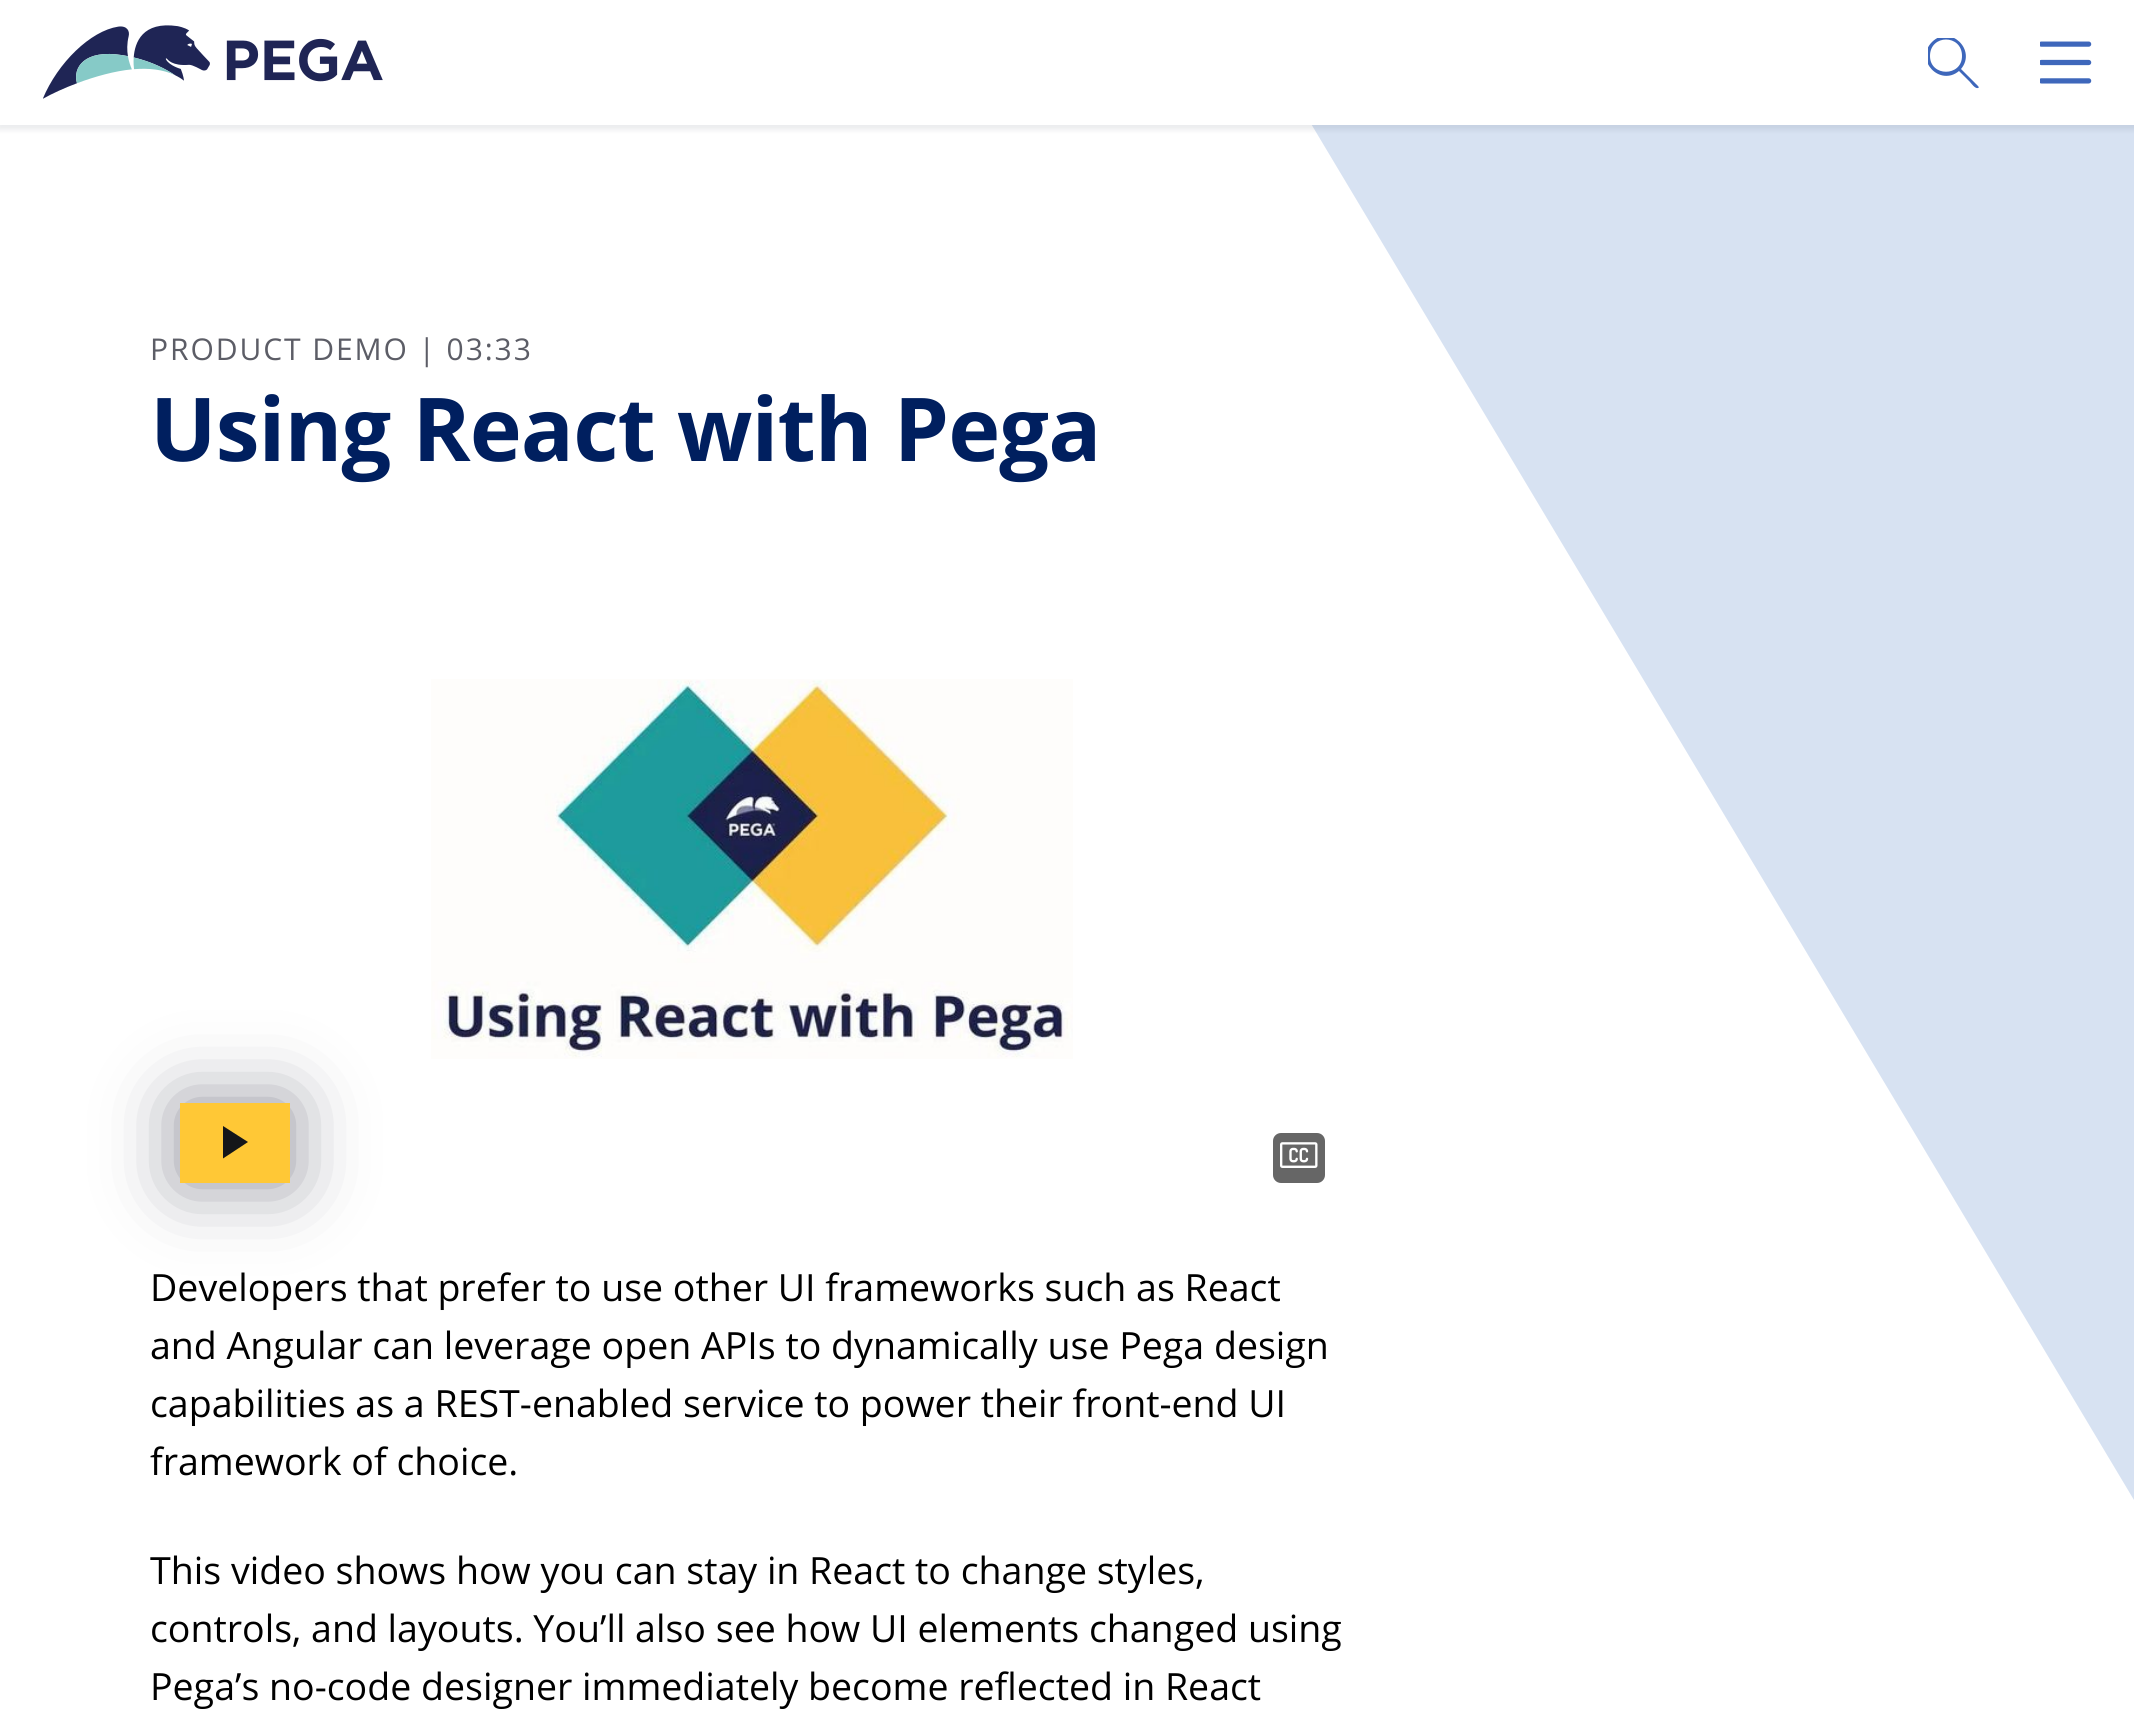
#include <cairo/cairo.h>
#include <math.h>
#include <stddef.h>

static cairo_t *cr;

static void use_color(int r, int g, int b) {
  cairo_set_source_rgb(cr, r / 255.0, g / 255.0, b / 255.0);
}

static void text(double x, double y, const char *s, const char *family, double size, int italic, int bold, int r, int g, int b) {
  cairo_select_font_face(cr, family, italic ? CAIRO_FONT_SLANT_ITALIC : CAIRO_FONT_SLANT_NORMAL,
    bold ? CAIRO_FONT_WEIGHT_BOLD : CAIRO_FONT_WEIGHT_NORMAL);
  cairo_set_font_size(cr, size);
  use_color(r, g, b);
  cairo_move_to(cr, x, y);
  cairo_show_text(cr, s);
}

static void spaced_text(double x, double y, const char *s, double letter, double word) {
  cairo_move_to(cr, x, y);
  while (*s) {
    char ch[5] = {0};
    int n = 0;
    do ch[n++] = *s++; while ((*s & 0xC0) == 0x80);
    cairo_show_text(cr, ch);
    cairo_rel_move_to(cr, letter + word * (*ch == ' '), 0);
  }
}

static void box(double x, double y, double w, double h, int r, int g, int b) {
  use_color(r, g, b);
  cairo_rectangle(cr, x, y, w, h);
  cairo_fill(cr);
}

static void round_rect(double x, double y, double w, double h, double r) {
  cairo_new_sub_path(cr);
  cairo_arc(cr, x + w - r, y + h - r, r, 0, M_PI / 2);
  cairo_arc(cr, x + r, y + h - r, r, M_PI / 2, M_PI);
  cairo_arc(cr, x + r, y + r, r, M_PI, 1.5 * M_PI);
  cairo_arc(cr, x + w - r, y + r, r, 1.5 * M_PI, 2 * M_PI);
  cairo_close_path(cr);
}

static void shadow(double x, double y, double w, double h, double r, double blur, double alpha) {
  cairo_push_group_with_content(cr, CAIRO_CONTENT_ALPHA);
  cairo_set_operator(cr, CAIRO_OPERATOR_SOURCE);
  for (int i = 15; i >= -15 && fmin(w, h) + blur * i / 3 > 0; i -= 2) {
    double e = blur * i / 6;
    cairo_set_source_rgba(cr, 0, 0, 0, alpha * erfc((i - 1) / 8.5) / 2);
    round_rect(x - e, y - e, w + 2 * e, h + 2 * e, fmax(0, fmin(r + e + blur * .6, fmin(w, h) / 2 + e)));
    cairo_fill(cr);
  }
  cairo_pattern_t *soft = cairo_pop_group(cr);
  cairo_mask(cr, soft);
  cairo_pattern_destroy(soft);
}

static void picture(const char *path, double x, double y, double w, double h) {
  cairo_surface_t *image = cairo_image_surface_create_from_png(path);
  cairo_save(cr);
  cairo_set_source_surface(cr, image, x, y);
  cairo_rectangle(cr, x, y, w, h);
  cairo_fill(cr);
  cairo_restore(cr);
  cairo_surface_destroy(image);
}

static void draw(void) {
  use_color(255, 255, 255);
  cairo_paint(cr);
  use_color(215, 226, 242);
  cairo_set_fill_rule(cr, CAIRO_FILL_RULE_EVEN_ODD);
  cairo_new_path(cr);
  cairo_move_to(cr, 944, -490);
  cairo_line_to(cr, 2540, 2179);
  cairo_line_to(cr, 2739, 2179);
  cairo_line_to(cr, 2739, -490);
  cairo_close_path(cr);
  cairo_fill(cr);
  use_color(6, 10, 36);
  shadow(-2, 0, 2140, 130, 0, 2.5, 0.08);
  box(0, 0, 2134, 125, 255, 255, 255);
  picture("img_01.png", 43, 25, 340, 74);
  cairo_save(cr);
  cairo_set_fill_rule(cr, CAIRO_FILL_RULE_WINDING);
  cairo_rectangle(cr, 1928, 38, 52, 52);
  cairo_clip(cr);
  use_color(62, 103, 187);
  cairo_new_path(cr);
  cairo_move_to(cr, 1978, 86);
  cairo_line_to(cr, 1961, 69);
  cairo_curve_to(cr, 1977, 50, 1950, 24, 1932, 42);
  cairo_curve_to(cr, 1914, 60, 1940, 87, 1959, 71);
  cairo_line_to(cr, 1970, 82);
  cairo_curve_to(cr, 1971, 83, 1975, 89, 1978, 88);
  cairo_curve_to(cr, 1979, 88, 1979, 87, 1978, 86);
  cairo_close_path(cr);
  cairo_move_to(cr, 1930, 56);
  cairo_curve_to(cr, 1930, 34, 1962, 34, 1962, 56);
  cairo_curve_to(cr, 1962, 77, 1930, 77, 1930, 56);
  cairo_close_path(cr);
  cairo_fill(cr);
  cairo_restore(cr);
  picture("img_02.png", 2040, 41, 52, 43);
  picture("img_03.png", 431, 679, 642, 380);
  use_color(141, 142, 153);
  shadow(180, 1103, 110, 80, 0, 37.5, 1);
  box(180, 1103, 110, 80, 255, 200, 54);
  use_color(21, 22, 25);
  cairo_set_fill_rule(cr, CAIRO_FILL_RULE_WINDING);
  cairo_new_path(cr);
  cairo_move_to(cr, 223, 1126);
  cairo_line_to(cr, 223, 1158.5);
  cairo_line_to(cr, 248, 1142);
  cairo_close_path(cr);
  cairo_fill(cr);
  use_color(102, 102, 102);
  round_rect(1273, 1133, 52, 50, 8);
  cairo_fill(cr);
  picture("img_04.png", 1280, 1142, 38, 26);
  cairo_select_font_face(cr, "Open Sans", CAIRO_FONT_SLANT_NORMAL, CAIRO_FONT_WEIGHT_NORMAL);
  cairo_set_font_size(cr, 30);
  use_color(92, 93, 102);
  spaced_text(150, 360, "PRODUCT DEMO | 03:33", 1.9, 0);
  cairo_select_font_face(cr, "Open Sans", CAIRO_FONT_SLANT_NORMAL, CAIRO_FONT_WEIGHT_BOLD);
  cairo_set_font_size(cr, 88.1);
  use_color(0, 31, 95);
  spaced_text(150, 461, "Using React with Pega", -0.9, 0);
  text(150, 1301, "Developers that prefer to use other UI frameworks such as React", "Open Sans", 37.5, 0, 0, 0, 0, 0);
  text(150, 1359, "and Angular can leverage open APIs to dynamically use Pega design", "Open Sans", 37.5, 0, 0, 0, 0, 0);
  text(150, 1417, "capabilities as a REST-enabled service to power their front-end UI", "Open Sans", 37.5, 0, 0, 0, 0, 0);
  text(150, 1475, "framework of choice.", "Open Sans", 37.5, 0, 0, 0, 0, 0);
  text(150, 1584, "This video shows how you can stay in React to change styles,", "Open Sans", 37.5, 0, 0, 0, 0, 0);
  text(150, 1642, "controls, and layouts. You’ll also see how UI elements changed using", "Open Sans", 37.5, 0, 0, 0, 0, 0);
  text(150, 1700, "Pega’s no-code designer immediately become reflected in React", "Open Sans", 37.5, 0, 0, 0, 0, 0);
}

int main(void) {
  cairo_surface_t *surface = cairo_image_surface_create(CAIRO_FORMAT_RGB24, 2134, 1720);
  cr = cairo_create(surface);
  cairo_font_options_t *options = cairo_font_options_create();
  cairo_font_options_set_hint_metrics(options, CAIRO_HINT_METRICS_OFF);
  cairo_font_options_set_hint_style(options, CAIRO_HINT_STYLE_NONE);
  cairo_set_font_options(cr, options);
  cairo_set_miter_limit(cr, 4);
  draw();
  cairo_surface_write_to_png(surface, "out.png");
  cairo_font_options_destroy(options);
  cairo_destroy(cr);
  cairo_surface_destroy(surface);
  return 0;
}
